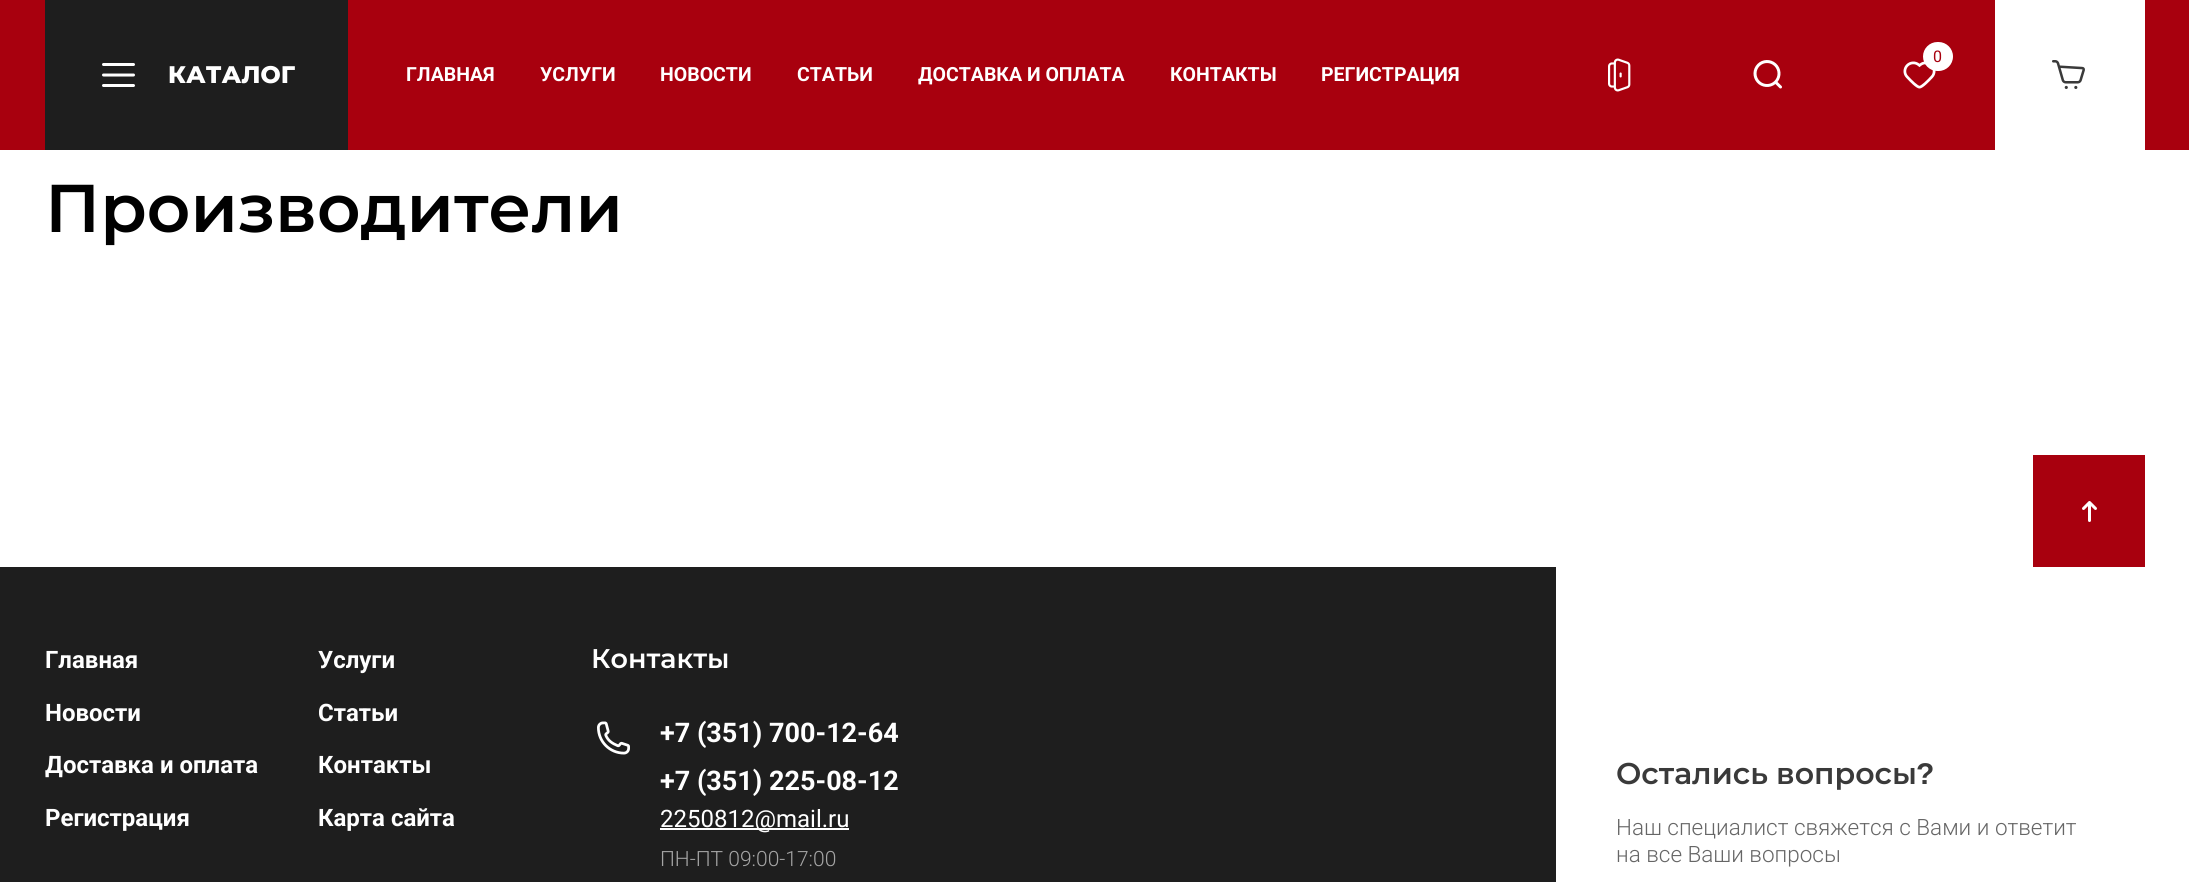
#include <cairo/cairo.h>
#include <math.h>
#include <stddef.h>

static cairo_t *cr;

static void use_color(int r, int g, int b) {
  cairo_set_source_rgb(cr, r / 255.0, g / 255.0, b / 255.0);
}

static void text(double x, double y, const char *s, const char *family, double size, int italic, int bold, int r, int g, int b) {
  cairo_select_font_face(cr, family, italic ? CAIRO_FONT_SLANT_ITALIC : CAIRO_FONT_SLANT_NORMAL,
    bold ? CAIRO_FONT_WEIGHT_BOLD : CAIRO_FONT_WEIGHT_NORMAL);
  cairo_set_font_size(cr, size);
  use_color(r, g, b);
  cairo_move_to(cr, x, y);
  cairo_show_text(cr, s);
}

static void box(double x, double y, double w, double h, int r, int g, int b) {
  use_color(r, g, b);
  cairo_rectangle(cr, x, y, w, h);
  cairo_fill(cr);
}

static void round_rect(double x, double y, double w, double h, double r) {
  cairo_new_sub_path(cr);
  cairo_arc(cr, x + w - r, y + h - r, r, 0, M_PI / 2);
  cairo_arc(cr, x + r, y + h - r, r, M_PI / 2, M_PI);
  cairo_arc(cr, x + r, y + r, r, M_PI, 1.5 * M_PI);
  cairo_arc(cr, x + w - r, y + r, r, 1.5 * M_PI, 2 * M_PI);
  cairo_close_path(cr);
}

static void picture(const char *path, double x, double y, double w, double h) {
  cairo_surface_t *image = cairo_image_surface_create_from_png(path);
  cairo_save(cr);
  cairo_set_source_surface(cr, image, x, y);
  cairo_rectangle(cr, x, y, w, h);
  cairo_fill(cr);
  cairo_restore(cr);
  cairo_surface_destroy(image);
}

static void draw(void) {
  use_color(255, 255, 255);
  cairo_paint(cr);
  box(0, 0, 2189, 150, 168, 0, 14);
  picture("img_01.png", 1903, 61, 33, 28);
  use_color(255, 255, 255);
  round_rect(1923, 42, 30, 29, 14.5);
  cairo_fill(cr);
  box(1995, 0, 150, 150, 255, 255, 255);
  picture("img_02.png", 2052, 60, 33, 29);
  picture("img_03.png", 1608, 58, 23, 34);
  picture("img_04.png", 1753, 60, 29, 29);
  box(45, 0, 303, 150, 30, 30, 30);
  picture("img_05.png", 102, 63, 33, 24);
  box(2033, 455, 112, 112, 168, 0, 14);
  picture("img_06.png", 2082, 501, 15, 21);
  box(0, 567, 1556, 315, 30, 30, 30);
  picture("img_07.png", 597, 721, 33, 34);
  box(660, 828, 189, 2, 255, 255, 255);
  text(1933, 62, "0", "Roboto", 16, 0, 0, 168, 0, 14);
  text(168, 83, "КАТАЛОГ", "Montserrat ExtraBold", 24, 0, 0, 255, 255, 255);
  text(406, 81, "ГЛАВНАЯ", "Roboto", 19.5, 0, 1, 255, 255, 255);
  text(540, 81, "УСЛУГИ", "Roboto", 19.5, 0, 1, 255, 255, 255);
  text(660, 81, "НОВОСТИ", "Roboto", 19.5, 0, 1, 255, 255, 255);
  text(797, 81, "СТАТЬИ", "Roboto", 19.5, 0, 1, 255, 255, 255);
  text(918, 81, "ДОСТАВКА И ОПЛАТА", "Roboto", 19.5, 0, 1, 255, 255, 255);
  text(1170, 81, "КОНТАКТЫ", "Roboto", 19.5, 0, 1, 255, 255, 255);
  text(1321, 81, "РЕГИСТРАЦИЯ", "Roboto", 19.5, 0, 1, 255, 255, 255);
  text(45, 232, "Производители", "Montserrat SemiBold", 67.5, 0, 0, 0, 0, 0);
  text(45, 668, "Главная", "Roboto", 24, 0, 1, 255, 255, 255);
  text(318, 668, "Услуги", "Roboto", 24, 0, 1, 255, 255, 255);
  text(45, 721, "Новости", "Roboto", 24, 0, 1, 255, 255, 255);
  text(318, 721, "Статьи", "Roboto", 24, 0, 1, 255, 255, 255);
  text(45, 773, "Доставка и оплата", "Roboto", 24, 0, 1, 255, 255, 255);
  text(318, 773, "Контакты", "Roboto", 24, 0, 1, 255, 255, 255);
  text(45, 826, "Регистрация", "Roboto", 24, 0, 1, 255, 255, 255);
  text(318, 826, "Карта сайта", "Roboto", 24, 0, 1, 255, 255, 255);
  text(591, 668, "Контакты", "Montserrat SemiBold", 27, 0, 0, 255, 255, 255);
  text(660, 742, "+7 (351) 700-12-64", "Roboto", 27, 0, 1, 255, 255, 255);
  text(660, 790, "+7 (351) 225-08-12", "Roboto", 27, 0, 1, 255, 255, 255);
  text(660, 827, "2250812@mail.ru", "Roboto", 24, 0, 0, 255, 255, 255);
  text(660, 866, "ПН-ПТ 09:00-17:00", "Roboto Light", 21, 0, 0, 165, 165, 165);
  text(1616, 784, "Остались вопросы", "Montserrat SemiBold", 30, 0, 0, 58, 58, 58);
  text(1916, 784, "?", "Liberation Sans", 30, 0, 1, 58, 58, 58);
  text(1616, 835, "Наш специалист свяжется с Вами и ответит", "Roboto Light", 22.5, 0, 0, 102, 102, 102);
  text(1616, 862, "на все Ваши вопросы", "Roboto Light", 22.5, 0, 0, 102, 102, 102);
}

int main(void) {
  cairo_surface_t *surface = cairo_image_surface_create(CAIRO_FORMAT_RGB24, 2189, 882);
  cr = cairo_create(surface);
  cairo_font_options_t *options = cairo_font_options_create();
  cairo_font_options_set_hint_metrics(options, CAIRO_HINT_METRICS_OFF);
  cairo_font_options_set_hint_style(options, CAIRO_HINT_STYLE_NONE);
  cairo_set_font_options(cr, options);
  cairo_set_miter_limit(cr, 4);
  draw();
  cairo_surface_write_to_png(surface, "out.png");
  cairo_font_options_destroy(options);
  cairo_destroy(cr);
  cairo_surface_destroy(surface);
  return 0;
}
